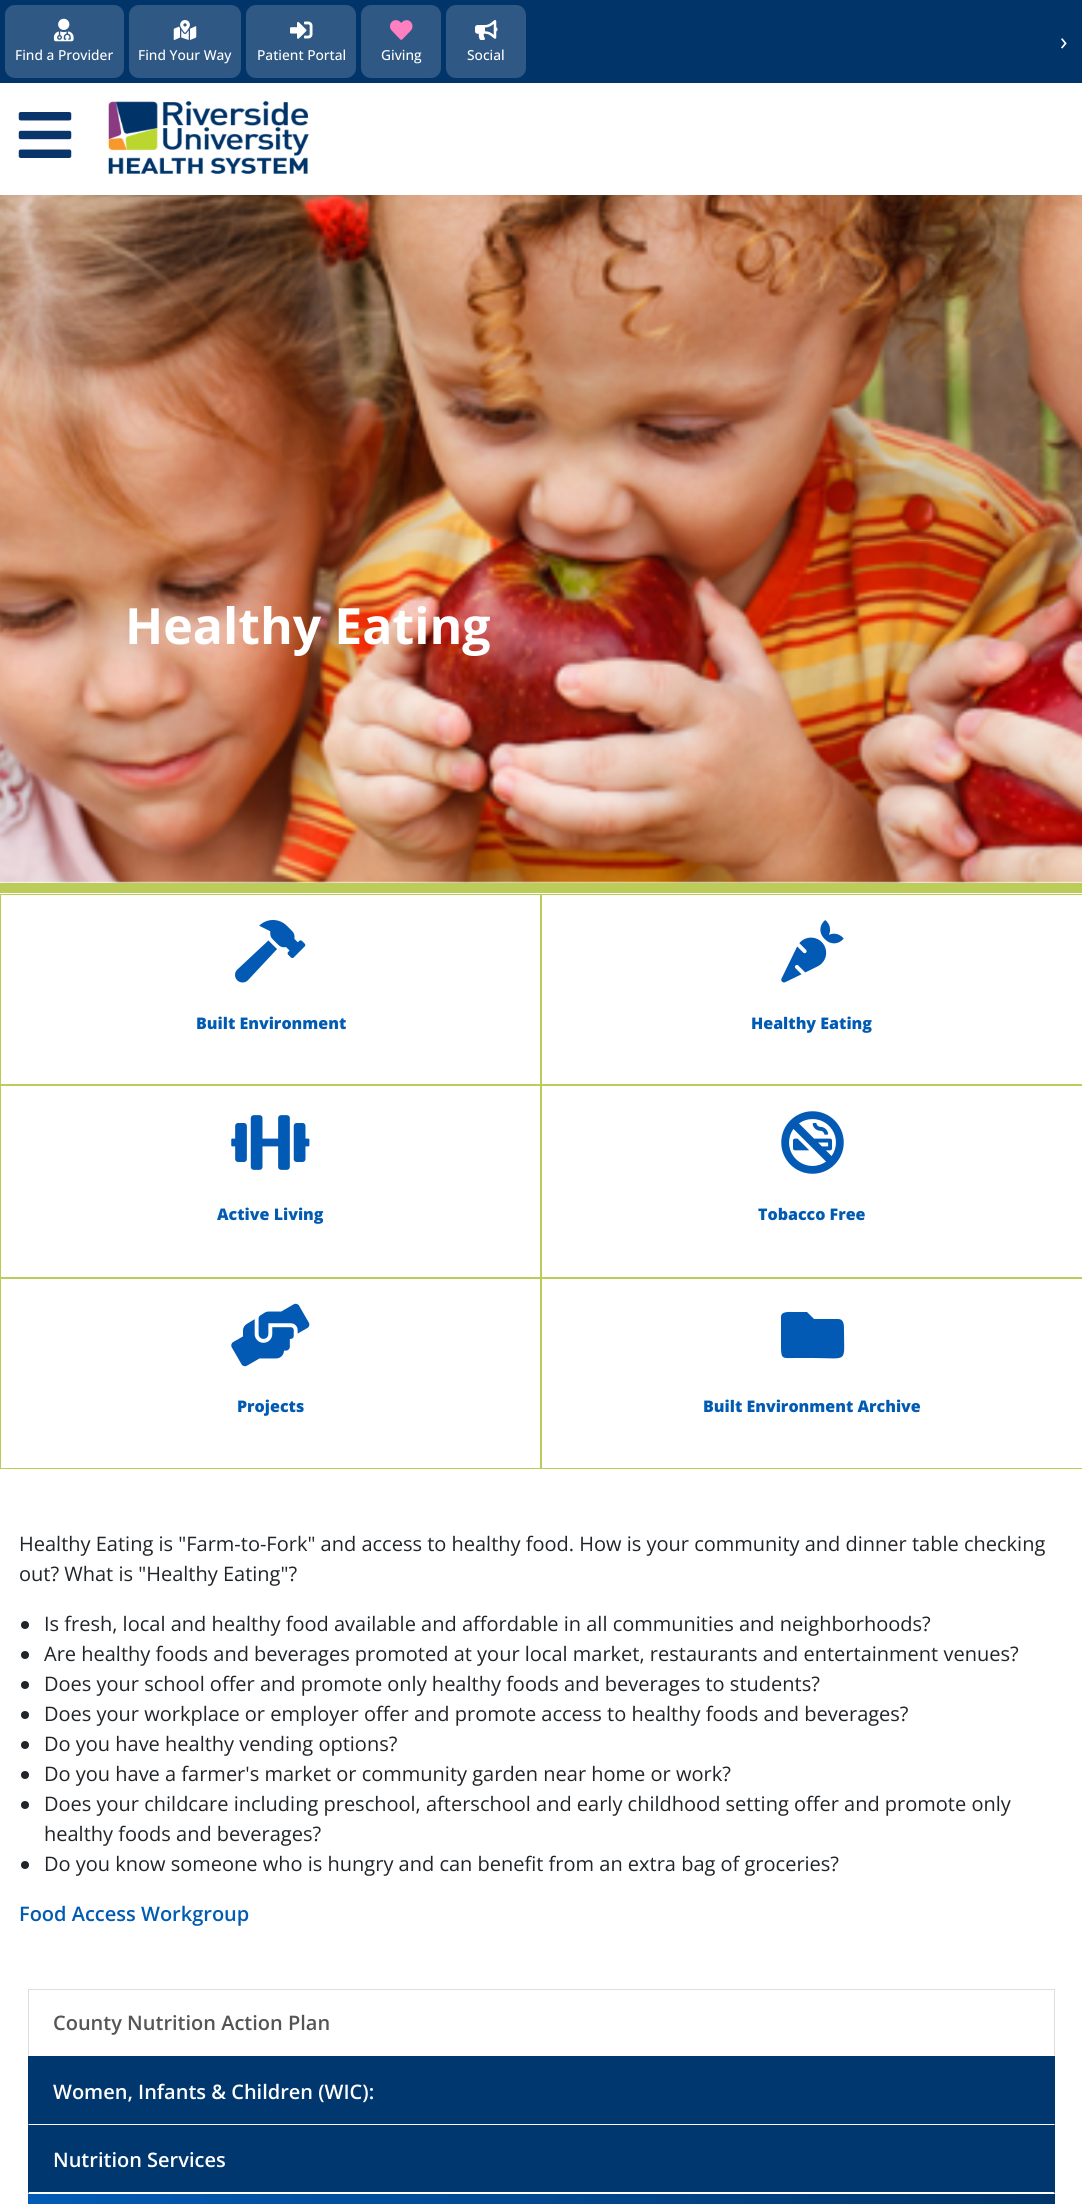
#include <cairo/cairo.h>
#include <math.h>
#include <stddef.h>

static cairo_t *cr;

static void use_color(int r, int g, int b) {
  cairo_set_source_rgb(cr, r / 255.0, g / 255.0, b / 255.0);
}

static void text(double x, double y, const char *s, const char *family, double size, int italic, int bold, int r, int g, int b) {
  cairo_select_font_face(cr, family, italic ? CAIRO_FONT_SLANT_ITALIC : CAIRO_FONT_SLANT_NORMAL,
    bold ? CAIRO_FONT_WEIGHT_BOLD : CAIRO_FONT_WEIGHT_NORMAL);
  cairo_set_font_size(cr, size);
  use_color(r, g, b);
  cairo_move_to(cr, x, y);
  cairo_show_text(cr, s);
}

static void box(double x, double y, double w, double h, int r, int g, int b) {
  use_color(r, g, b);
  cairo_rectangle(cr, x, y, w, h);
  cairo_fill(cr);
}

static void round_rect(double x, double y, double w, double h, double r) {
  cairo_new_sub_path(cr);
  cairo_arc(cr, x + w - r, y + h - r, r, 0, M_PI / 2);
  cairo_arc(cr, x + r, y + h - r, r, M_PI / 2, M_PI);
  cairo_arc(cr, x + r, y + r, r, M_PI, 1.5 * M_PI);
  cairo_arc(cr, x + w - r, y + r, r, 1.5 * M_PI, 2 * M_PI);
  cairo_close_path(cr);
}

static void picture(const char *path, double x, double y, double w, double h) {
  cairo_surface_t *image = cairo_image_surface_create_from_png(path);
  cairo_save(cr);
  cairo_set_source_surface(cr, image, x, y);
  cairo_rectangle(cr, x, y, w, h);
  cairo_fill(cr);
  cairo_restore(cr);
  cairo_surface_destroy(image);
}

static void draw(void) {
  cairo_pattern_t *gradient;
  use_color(255, 255, 255);
  cairo_paint(cr);
  box(0, 0, 1082, 83, 1, 52, 105);
  use_color(47, 89, 132);
  round_rect(5, 5, 119, 73, 10);
  cairo_fill(cr);
  picture("img_01.png", 53, 18, 21, 24);
  round_rect(129, 5, 112, 73, 10);
  cairo_fill(cr);
  picture("img_02.png", 173, 20, 24, 20);
  round_rect(246, 5, 110, 73, 10);
  cairo_fill(cr);
  picture("img_03.png", 290, 21, 23, 18);
  round_rect(361, 5, 80, 73, 10);
  cairo_fill(cr);
  picture("img_04.png", 390, 20, 23, 20);
  round_rect(446, 5, 80, 73, 10);
  cairo_fill(cr);
  picture("img_05.png", 475, 20, 23, 20);
  picture("img_06.png", 18, 112, 54, 46);
  picture("img_07.png", 108, 101, 201, 73);
  box(0, 883, 1082, 10, 187, 204, 89);
  picture("img_08.png", 0, 195, 1082, 688);
  cairo_rectangle(cr, 0.5, 894.5, 540, 190);
  cairo_set_line_width(cr, 1);
  cairo_stroke(cr);
  picture("img_09.png", 235, 920, 71, 63);
  cairo_rectangle(cr, 541.5, 894.5, 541, 190);
  cairo_stroke(cr);
  picture("img_10.png", 781, 920, 63, 63);
  cairo_rectangle(cr, 0.5, 1085.5, 540, 192);
  cairo_stroke(cr);
  picture("img_11.png", 231, 1115, 79, 55);
  cairo_rectangle(cr, 541.5, 1085.5, 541, 192);
  cairo_stroke(cr);
  picture("img_12.png", 781, 1111, 63, 63);
  cairo_rectangle(cr, 0.5, 1278.5, 540, 190);
  cairo_stroke(cr);
  picture("img_13.png", 231, 1303, 79, 64);
  cairo_rectangle(cr, 541.5, 1278.5, 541, 190);
  cairo_stroke(cr);
  use_color(2, 90, 180);
  cairo_new_path(cr);
  cairo_move_to(cr, 838, 1319);
  cairo_line_to(cr, 814, 1319);
  cairo_line_to(cr, 807, 1312);
  cairo_line_to(cr, 794, 1312);
  cairo_curve_to(cr, 789, 1312, 781, 1311, 781, 1317);
  cairo_line_to(cr, 781, 1347);
  cairo_curve_to(cr, 781, 1360, 783, 1358, 796, 1358);
  cairo_line_to(cr, 812, 1358);
  cairo_curve_to(cr, 849, 1358, 844, 1364, 844, 1330);
  cairo_curve_to(cr, 844, 1325, 844, 1319, 838, 1319);
  cairo_close_path(cr);
  cairo_fill(cr);
  use_color(33, 37, 41);
  cairo_arc(cr, 25, 1625, 4, 0, 2 * M_PI);
  cairo_fill(cr);
  cairo_arc(cr, 25, 1655, 4, 0, 2 * M_PI);
  cairo_fill(cr);
  cairo_arc(cr, 25, 1685, 4, 0, 2 * M_PI);
  cairo_fill(cr);
  cairo_arc(cr, 25, 1715, 4, 0, 2 * M_PI);
  cairo_fill(cr);
  cairo_arc(cr, 25, 1745, 4, 0, 2 * M_PI);
  cairo_fill(cr);
  cairo_arc(cr, 25, 1775, 4, 0, 2 * M_PI);
  cairo_fill(cr);
  cairo_arc(cr, 25, 1805, 4, 0, 2 * M_PI);
  cairo_fill(cr);
  cairo_arc(cr, 25, 1865, 4, 0, 2 * M_PI);
  cairo_fill(cr);
  box(28, 2056, 1027, 138, 0, 55, 111);
  box(28, 1989, 1027, 1, 221, 221, 221);
  cairo_new_path(cr);
  cairo_move_to(cr, 1055, 1989);
  cairo_line_to(cr, 1055, 2056);
  cairo_line_to(cr, 1054, 2055);
  cairo_line_to(cr, 1054, 1990);
  cairo_close_path(cr);
  cairo_fill(cr);
  cairo_new_path(cr);
  cairo_move_to(cr, 28, 2056);
  cairo_line_to(cr, 28, 1989);
  cairo_line_to(cr, 29, 1990);
  cairo_line_to(cr, 29, 2055);
  cairo_close_path(cr);
  cairo_fill(cr);
  use_color(255, 255, 255);
  cairo_new_path(cr);
  cairo_move_to(cr, 1055, 2125);
  cairo_line_to(cr, 28, 2125);
  cairo_line_to(cr, 29, 2124);
  cairo_line_to(cr, 1054, 2124);
  cairo_close_path(cr);
  cairo_fill(cr);
  cairo_new_path(cr);
  cairo_move_to(cr, 1055, 2194);
  cairo_line_to(cr, 28, 2194);
  cairo_line_to(cr, 29, 2192);
  cairo_line_to(cr, 1054, 2192);
  cairo_close_path(cr);
  cairo_fill(cr);
  gradient = cairo_pattern_create_linear(28, 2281, 1055, 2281);
  cairo_pattern_add_color_stop_rgba(gradient, 0, 0.008, 0.357, 0.71, 1);
  cairo_pattern_add_color_stop_rgba(gradient, 1, 0, 0.208, 0.412, 1);
  cairo_set_source(cr, gradient);
  cairo_pattern_destroy(gradient);
  cairo_rectangle(cr, 28, 2194, 1027, 10);
  cairo_fill(cr);
  text(1060, 50, "›", "Open Sans", 25, 0, 0, 255, 255, 255);
  text(15, 60, "Find a Provider", "Open Sans Medium", 13.75, 0, 0, 255, 255, 255);
  text(138, 60, "Find Your Way", "Open Sans Medium", 13.75, 0, 0, 255, 255, 255);
  text(257, 60, "Patient Portal", "Open Sans Medium", 13.75, 0, 0, 255, 255, 255);
  text(381, 60, "Giving", "Open Sans Medium", 13.75, 0, 0, 255, 255, 255);
  text(467, 60, "Social", "Open Sans Medium", 13.75, 0, 0, 255, 255, 255);
  text(125, 644, "Healthy Eating", "Open Sans", 50, 0, 1, 255, 255, 255);
  text(196, 1029, "Built Environment", "Open Sans ExtraBold", 16, 0, 0, 1, 91, 179);
  text(751, 1029, "Healthy Eating", "Open Sans ExtraBold", 16, 0, 0, 1, 91, 179);
  text(217, 1220, "Active Living", "Open Sans ExtraBold", 16, 0, 0, 1, 91, 179);
  text(758, 1220, "Tobacco Free", "Open Sans ExtraBold", 16, 0, 0, 1, 91, 179);
  text(237, 1412, "Projects", "Open Sans ExtraBold", 16, 0, 0, 1, 91, 179);
  text(703, 1412, "Built Environment Archive", "Open Sans ExtraBold", 16, 0, 0, 1, 91, 179);
  text(19, 1551, "Healthy Eating is \"Farm-to-Fork\" and access to healthy food. How is your community and dinner table checking", "Open Sans", 20, 0, 0, 33, 37, 41);
  text(19, 1581, "out? What is \"Healthy Eating\"?", "Open Sans", 20, 0, 0, 33, 37, 41);
  text(44, 1631, "Is fresh, local and healthy food available and affordable in all communities and neighborhoods?", "Open Sans", 20, 0, 0, 33, 37, 41);
  text(44, 1661, "Are healthy foods and beverages promoted at your local market, restaurants and entertainment venues?", "Open Sans", 20, 0, 0, 33, 37, 41);
  text(44, 1691, "Does your school offer and promote only healthy foods and beverages to students?", "Open Sans", 20, 0, 0, 33, 37, 41);
  text(44, 1721, "Does your workplace or employer offer and promote access to healthy foods and beverages?", "Open Sans", 20, 0, 0, 33, 37, 41);
  text(44, 1751, "Do you have healthy vending options?", "Open Sans", 20, 0, 0, 33, 37, 41);
  text(44, 1781, "Do you have a farmer's market or community garden near home or work?", "Open Sans", 20, 0, 0, 33, 37, 41);
  text(44, 1811, "Does your childcare including preschool, afterschool and early childhood setting offer and promote only", "Open Sans", 20, 0, 0, 33, 37, 41);
  text(44, 1841, "healthy foods and beverages?", "Open Sans", 20, 0, 0, 33, 37, 41);
  text(44, 1871, "Do you know someone who is hungry and can benefit from an extra bag of groceries?", "Open Sans", 20, 0, 0, 33, 37, 41);
  text(19, 1921, "Food Access Workgroup", "Open Sans SemiBold", 20, 0, 0, 1, 91, 179);
  text(53, 2030, "County Nutrition Action Plan", "Open Sans SemiBold", 20, 0, 0, 85, 85, 85);
  text(53, 2099, "Women, Infants & Children (WIC):", "Open Sans SemiBold", 20, 0, 0, 255, 255, 255);
  text(53, 2167, "Nutrition Services", "Open Sans SemiBold", 20, 0, 0, 255, 255, 255);
}

int main(void) {
  cairo_surface_t *surface = cairo_image_surface_create(CAIRO_FORMAT_RGB24, 1082, 2204);
  cr = cairo_create(surface);
  cairo_font_options_t *options = cairo_font_options_create();
  cairo_font_options_set_hint_metrics(options, CAIRO_HINT_METRICS_OFF);
  cairo_font_options_set_hint_style(options, CAIRO_HINT_STYLE_NONE);
  cairo_set_font_options(cr, options);
  cairo_set_miter_limit(cr, 4);
  draw();
  cairo_surface_write_to_png(surface, "out.png");
  cairo_font_options_destroy(options);
  cairo_destroy(cr);
  cairo_surface_destroy(surface);
  return 0;
}
